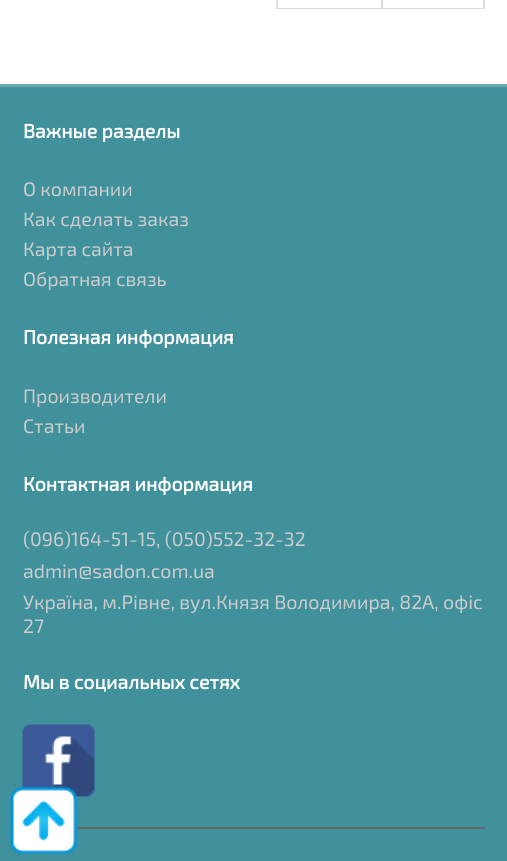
#include <cairo/cairo.h>
#include <math.h>
#include <stddef.h>

static cairo_t *cr;

static void use_color(int r, int g, int b) {
  cairo_set_source_rgb(cr, r / 255.0, g / 255.0, b / 255.0);
}

static void text(double x, double y, const char *s, const char *family, double size, int italic, int bold, int r, int g, int b) {
  cairo_select_font_face(cr, family, italic ? CAIRO_FONT_SLANT_ITALIC : CAIRO_FONT_SLANT_NORMAL,
    bold ? CAIRO_FONT_WEIGHT_BOLD : CAIRO_FONT_WEIGHT_NORMAL);
  cairo_set_font_size(cr, size);
  use_color(r, g, b);
  cairo_move_to(cr, x, y);
  cairo_show_text(cr, s);
}

static void box(double x, double y, double w, double h, int r, int g, int b) {
  use_color(r, g, b);
  cairo_rectangle(cr, x, y, w, h);
  cairo_fill(cr);
}

static void picture(const char *path, double x, double y, double w, double h) {
  cairo_surface_t *image = cairo_image_surface_create_from_png(path);
  cairo_save(cr);
  cairo_set_source_surface(cr, image, x, y);
  cairo_rectangle(cr, x, y, w, h);
  cairo_fill(cr);
  cairo_restore(cr);
  cairo_surface_destroy(image);
}

static void draw(void) {
  use_color(255, 255, 255);
  cairo_paint(cr);
  cairo_rectangle(cr, 277, -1, 207, 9);
  use_color(221, 221, 221);
  cairo_stroke(cr);
  box(278, 7, 205, 1, 255, 255, 255);
  box(381, 0, 2, 8, 221, 221, 221);
  box(0, 87, 507, 774, 64, 145, 156);
  box(0, 84, 507, 3, 102, 167, 176);
  picture("img_01.png", 22, 724, 73, 73);
  box(76, 827, 409, 2, 102, 102, 102);
  picture("img_02.png", 10, 786, 69, 68);
  text(23, 138, "Важные разделы", "Exo 2", 19.5, 0, 1, 255, 255, 255);
  text(23, 196, "О компании", "Exo 2", 19.5, 0, 0, 204, 204, 204);
  text(23, 226, "Как сделать заказ", "Exo 2", 19.5, 0, 0, 204, 204, 204);
  text(23, 256, "Карта сайта", "Exo 2", 19.5, 0, 0, 204, 204, 204);
  text(23, 286, "Обратная связь", "Exo 2", 19.5, 0, 0, 204, 204, 204);
  text(23, 344, "Полезная информация", "Exo 2", 19.5, 0, 1, 255, 255, 255);
  text(23, 403, "Производители", "Exo 2", 19.5, 0, 0, 204, 204, 204);
  text(23, 433, "Статьи", "Exo 2", 19.5, 0, 0, 204, 204, 204);
  text(23, 491, "Контактная информация", "Exo 2", 19.5, 0, 1, 255, 255, 255);
  text(23, 546, "(096)164-51-15, (050)552-32-32", "Exo 2", 19.5, 0, 0, 204, 204, 204);
  text(23, 578, "admin@sadon.com.ua", "Exo 2", 19.5, 0, 0, 204, 204, 204);
  text(23, 609, "Україна, м.Рівне, вул.Князя Володимира, 82А, офіс", "Exo 2", 19.5, 0, 0, 204, 204, 204);
  text(23, 633, "27", "Exo 2", 19.5, 0, 0, 204, 204, 204);
  text(23, 689, "Мы в социальных сетях", "Exo 2", 19.5, 0, 1, 255, 255, 255);
}

int main(void) {
  cairo_surface_t *surface = cairo_image_surface_create(CAIRO_FORMAT_RGB24, 507, 861);
  cr = cairo_create(surface);
  cairo_font_options_t *options = cairo_font_options_create();
  cairo_font_options_set_hint_metrics(options, CAIRO_HINT_METRICS_OFF);
  cairo_font_options_set_hint_style(options, CAIRO_HINT_STYLE_NONE);
  cairo_set_font_options(cr, options);
  cairo_set_miter_limit(cr, 4);
  draw();
  cairo_surface_write_to_png(surface, "out.png");
  cairo_font_options_destroy(options);
  cairo_destroy(cr);
  cairo_surface_destroy(surface);
  return 0;
}
